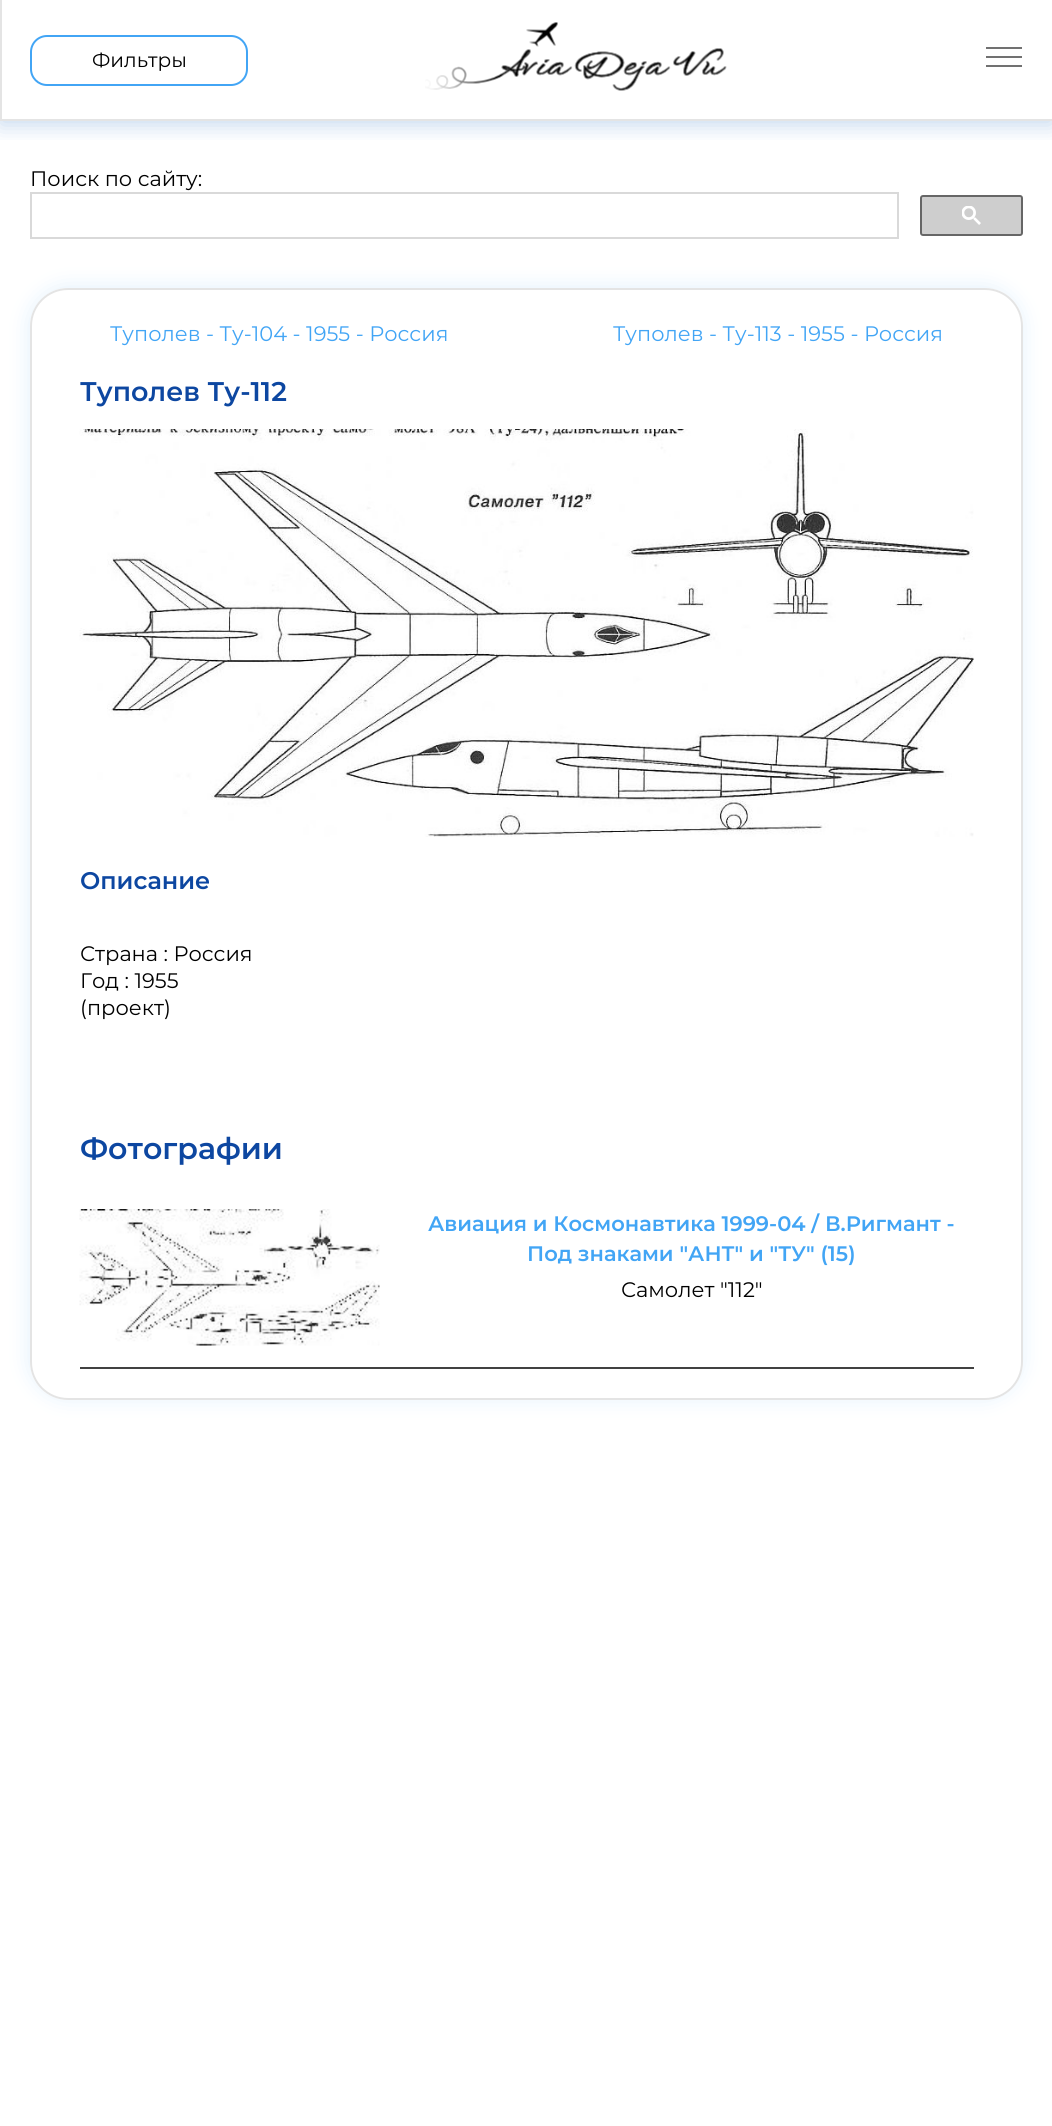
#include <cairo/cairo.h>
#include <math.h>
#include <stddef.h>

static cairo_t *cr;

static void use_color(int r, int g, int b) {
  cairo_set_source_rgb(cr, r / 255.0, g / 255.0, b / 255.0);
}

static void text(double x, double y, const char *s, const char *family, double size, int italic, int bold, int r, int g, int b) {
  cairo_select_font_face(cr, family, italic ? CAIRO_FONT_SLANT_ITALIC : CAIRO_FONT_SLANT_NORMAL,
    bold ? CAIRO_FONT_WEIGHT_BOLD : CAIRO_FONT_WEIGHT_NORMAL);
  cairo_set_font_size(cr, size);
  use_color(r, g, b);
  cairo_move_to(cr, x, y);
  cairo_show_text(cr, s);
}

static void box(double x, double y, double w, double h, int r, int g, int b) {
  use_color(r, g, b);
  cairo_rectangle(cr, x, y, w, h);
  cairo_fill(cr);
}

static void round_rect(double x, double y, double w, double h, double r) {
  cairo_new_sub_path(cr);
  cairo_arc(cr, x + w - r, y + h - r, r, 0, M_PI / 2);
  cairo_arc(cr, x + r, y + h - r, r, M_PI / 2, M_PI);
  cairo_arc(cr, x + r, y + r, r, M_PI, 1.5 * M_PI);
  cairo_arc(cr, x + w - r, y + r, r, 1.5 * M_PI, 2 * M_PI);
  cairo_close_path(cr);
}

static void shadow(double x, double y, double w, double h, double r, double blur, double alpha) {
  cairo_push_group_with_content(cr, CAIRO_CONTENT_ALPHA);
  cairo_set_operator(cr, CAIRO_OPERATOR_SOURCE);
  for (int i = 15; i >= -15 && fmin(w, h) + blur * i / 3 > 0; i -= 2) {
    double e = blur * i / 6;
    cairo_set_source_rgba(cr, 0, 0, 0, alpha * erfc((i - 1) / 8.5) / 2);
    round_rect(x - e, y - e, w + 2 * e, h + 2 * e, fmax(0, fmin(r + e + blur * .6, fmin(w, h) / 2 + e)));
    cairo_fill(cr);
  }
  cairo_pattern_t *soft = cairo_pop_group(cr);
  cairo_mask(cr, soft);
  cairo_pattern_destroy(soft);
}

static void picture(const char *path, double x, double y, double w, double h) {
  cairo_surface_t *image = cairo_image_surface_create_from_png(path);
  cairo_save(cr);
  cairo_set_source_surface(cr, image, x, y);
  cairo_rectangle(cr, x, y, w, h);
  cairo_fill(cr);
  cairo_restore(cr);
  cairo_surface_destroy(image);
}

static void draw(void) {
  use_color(255, 255, 255);
  cairo_paint(cr);
  cairo_save(cr);
  cairo_rectangle(cr, 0, 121, 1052, 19);
  cairo_clip(cr);
  use_color(21, 101, 192);
  shadow(0, 5, 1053, 120, 0, 11, 0.25);
  cairo_restore(cr);
  box(0, 119, 1052, 2, 228, 228, 228);
  box(0, 0, 2, 120, 228, 228, 228);
  round_rect(31, 36, 216, 49, 16);
  use_color(66, 165, 245);
  cairo_stroke(cr);
  picture("img_01.png", 425, 22, 302, 69);
  box(986, 47, 36, 2, 113, 113, 113);
  box(986, 56, 36, 2, 113, 113, 113);
  box(986, 65, 36, 2, 113, 113, 113);
  cairo_rectangle(cr, 31, 193, 867, 45);
  use_color(217, 217, 217);
  cairo_stroke(cr);
  use_color(206, 206, 206);
  round_rect(921, 196, 101, 39, 2);
  cairo_fill_preserve(cr);
  use_color(102, 102, 102);
  cairo_stroke(cr);
  picture("img_02.png", 962, 206, 19, 19);
  cairo_save(cr);
  cairo_set_fill_rule(cr, CAIRO_FILL_RULE_EVEN_ODD);
  cairo_new_path(cr);
  cairo_move_to(cr, 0, 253);
  cairo_line_to(cr, 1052, 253);
  cairo_line_to(cr, 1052, 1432);
  cairo_line_to(cr, 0, 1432);
  cairo_close_path(cr);
  cairo_move_to(cr, 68, 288);
  cairo_line_to(cr, 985, 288);
  cairo_curve_to(cr, 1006, 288, 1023, 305, 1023, 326);
  cairo_line_to(cr, 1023, 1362);
  cairo_curve_to(cr, 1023, 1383, 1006, 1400, 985, 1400);
  cairo_line_to(cr, 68, 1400);
  cairo_curve_to(cr, 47, 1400, 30, 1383, 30, 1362);
  cairo_line_to(cr, 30, 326);
  cairo_curve_to(cr, 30, 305, 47, 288, 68, 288);
  cairo_close_path(cr);
  cairo_clip(cr);
  use_color(66, 165, 245);
  shadow(29, 287, 993, 1111, 38, 11, 0.15);
  cairo_restore(cr);
  round_rect(31, 289, 991, 1110, 37);
  use_color(228, 228, 228);
  cairo_stroke(cr);
  picture("img_03.png", 79, 429, 895, 408);
  box(80, 1367, 894, 2, 65, 65, 65);
  picture("img_04.png", 79, 1209, 301, 137);
  text(92, 67, "Фильтры", "Montserrat", 20, 0, 0, 0, 0, 0);
  text(30, 186, "Поиск по сайту:", "Montserrat", 21, 0, 0, 0, 0, 0);
  text(110, 341, "Туполев - Ту-104 - 1955 - Россия", "Montserrat", 21, 0, 0, 66, 165, 245);
  text(613, 341, "Туполев - Ту-113 - 1955 - Россия", "Montserrat", 21, 0, 0, 66, 165, 245);
  text(80, 401, "Туполев Ту-112", "Montserrat SemiBold", 27, 0, 0, 13, 71, 161);
  text(80, 889, "Описание", "Montserrat SemiBold", 24, 0, 0, 13, 71, 161);
  text(80, 961, "Страна : Россия", "Montserrat", 21, 0, 0, 0, 0, 0);
  text(80, 988, "Год : 1955", "Montserrat", 21, 0, 0, 0, 0, 0);
  text(80, 1015, "(проект)", "Montserrat", 21, 0, 0, 0, 0, 0);
  text(80, 1159, "Фотографии", "Montserrat SemiBold", 30, 0, 0, 13, 71, 161);
  text(428, 1231, "Авиация и Космонавтика 1999-04 / В.Ригмант -", "Montserrat SemiBold", 21, 0, 0, 66, 165, 245);
  text(527, 1261, "Под знаками \"АНТ\" и \"ТУ\" (15)", "Montserrat SemiBold", 21, 0, 0, 66, 165, 245);
  text(621, 1297, "Самолет \"112\"", "Montserrat", 21, 0, 0, 0, 0, 0);
}

int main(void) {
  cairo_surface_t *surface = cairo_image_surface_create(CAIRO_FORMAT_RGB24, 1052, 2126);
  cr = cairo_create(surface);
  cairo_font_options_t *options = cairo_font_options_create();
  cairo_font_options_set_hint_metrics(options, CAIRO_HINT_METRICS_OFF);
  cairo_font_options_set_hint_style(options, CAIRO_HINT_STYLE_NONE);
  cairo_set_font_options(cr, options);
  cairo_set_miter_limit(cr, 4);
  draw();
  cairo_surface_write_to_png(surface, "out.png");
  cairo_font_options_destroy(options);
  cairo_destroy(cr);
  cairo_surface_destroy(surface);
  return 0;
}
